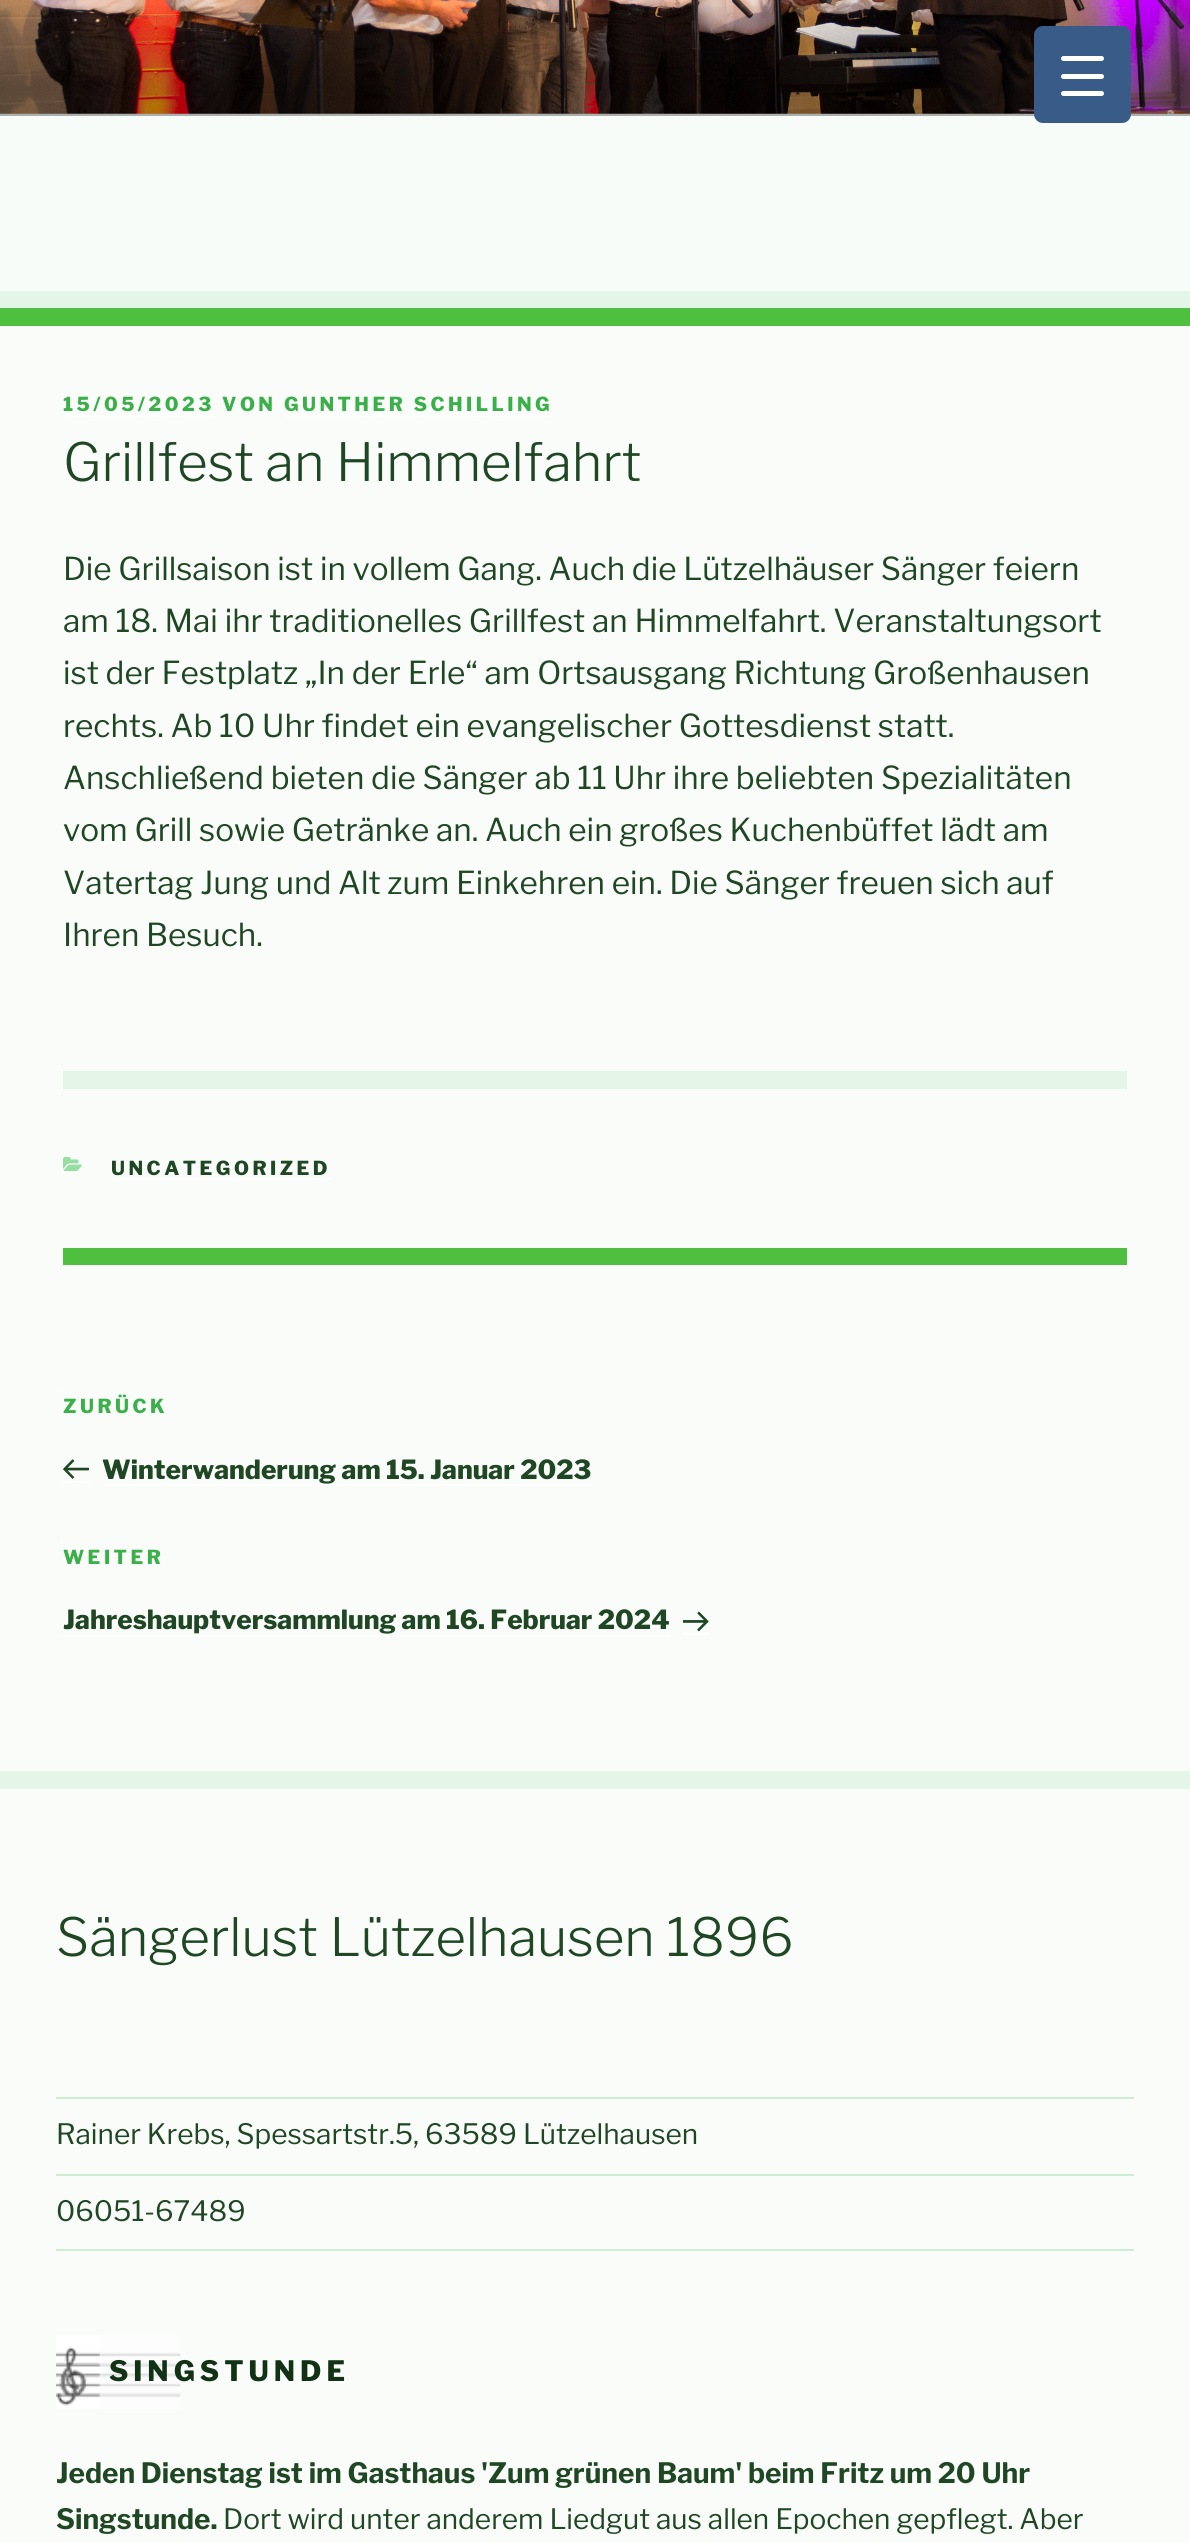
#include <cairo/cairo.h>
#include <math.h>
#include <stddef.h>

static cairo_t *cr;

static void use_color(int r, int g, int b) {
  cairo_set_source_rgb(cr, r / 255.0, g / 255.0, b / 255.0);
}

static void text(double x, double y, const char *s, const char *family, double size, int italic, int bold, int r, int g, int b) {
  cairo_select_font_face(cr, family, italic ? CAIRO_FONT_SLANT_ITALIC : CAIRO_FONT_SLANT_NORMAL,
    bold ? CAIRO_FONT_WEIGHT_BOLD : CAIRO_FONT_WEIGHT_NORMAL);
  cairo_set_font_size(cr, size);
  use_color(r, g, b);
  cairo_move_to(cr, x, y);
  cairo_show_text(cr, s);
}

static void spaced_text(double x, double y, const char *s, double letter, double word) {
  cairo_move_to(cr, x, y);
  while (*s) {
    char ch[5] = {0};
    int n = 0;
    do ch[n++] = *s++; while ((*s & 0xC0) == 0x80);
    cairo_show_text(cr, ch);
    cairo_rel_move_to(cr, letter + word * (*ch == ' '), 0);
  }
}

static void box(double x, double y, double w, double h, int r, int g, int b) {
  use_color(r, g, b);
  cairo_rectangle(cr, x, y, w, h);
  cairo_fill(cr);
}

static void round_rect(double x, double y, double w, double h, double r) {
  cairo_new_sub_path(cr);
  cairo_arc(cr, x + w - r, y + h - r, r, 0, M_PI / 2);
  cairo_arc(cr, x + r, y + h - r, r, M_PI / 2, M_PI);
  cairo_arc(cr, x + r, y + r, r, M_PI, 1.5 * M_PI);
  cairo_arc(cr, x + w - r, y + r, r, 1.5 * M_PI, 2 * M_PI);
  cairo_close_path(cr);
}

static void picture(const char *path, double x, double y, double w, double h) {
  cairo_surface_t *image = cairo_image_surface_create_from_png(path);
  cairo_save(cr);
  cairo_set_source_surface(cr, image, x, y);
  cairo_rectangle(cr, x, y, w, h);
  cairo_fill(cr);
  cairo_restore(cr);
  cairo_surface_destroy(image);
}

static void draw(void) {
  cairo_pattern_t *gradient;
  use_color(247, 252, 248);
  cairo_paint(cr);
  picture("img_01.png", 0, 0, 1190, 114);
  gradient = cairo_pattern_create_linear(595, 0, 595, 116);
  cairo_pattern_add_color_stop_rgba(gradient, 0, 0, 0, 0, 0);
  cairo_pattern_add_color_stop_rgba(gradient, 0.75, 0, 0, 0, 0.3);
  cairo_pattern_add_color_stop_rgba(gradient, 1, 0, 0, 0, 0.3);
  cairo_set_source(cr, gradient);
  cairo_pattern_destroy(gradient);
  cairo_rectangle(cr, 0, 6, 1190, 110);
  cairo_fill(cr);
  use_color(56, 91, 136);
  round_rect(1034, 26, 97, 97, 9);
  cairo_fill(cr);
  use_color(255, 255, 255);
  round_rect(1061, 74, 43, 5, 2.5);
  cairo_fill(cr);
  round_rect(1061, 56, 43, 5, 2.5);
  cairo_fill(cr);
  round_rect(1061, 91, 43, 5, 2.5);
  cairo_fill(cr);
  box(0, 291, 1190, 17, 228, 246, 231);
  box(0, 308, 1190, 18, 78, 191, 63);
  box(0, 326, 1190, 2217, 250, 252, 250);
  box(63, 415, 152, 2, 255, 255, 255);
  box(284, 415, 269, 2, 255, 255, 255);
  box(63, 1071, 1064, 18, 228, 246, 231);
  box(63, 1248, 1064, 17, 78, 191, 63);
  picture("img_02.png", 63, 1156, 19, 16);
  box(112, 1178, 219, 2, 255, 255, 255);
  box(61, 1390, 2, 2, 255, 255, 255);
  box(63, 1481, 26, 2, 255, 255, 255);
  box(103, 1484, 489, 2, 255, 255, 255);
  picture("img_03.png", 63, 1459, 26, 20);
  box(61, 1540, 2, 2, 255, 255, 255);
  box(63, 1635, 607, 2, 255, 255, 255);
  box(683, 1633, 26, 2, 255, 255, 255);
  picture("img_04.png", 683, 1611, 26, 21);
  box(0, 1771, 1190, 18, 228, 246, 231);
  box(56, 2097, 1078, 2, 205, 238, 210);
  box(56, 2174, 1078, 2, 205, 238, 210);
  box(56, 2249, 1078, 2, 205, 238, 210);
  picture("img_05.png", 56, 2335, 125, 74);
  cairo_select_font_face(cr, "Libre Franklin ExtraBold", CAIRO_FONT_SLANT_NORMAL, CAIRO_FONT_WEIGHT_NORMAL);
  cairo_set_font_size(cr, 19.25);
  use_color(59, 176, 74);
  spaced_text(63, 411, "15/05/2023 VON GUNTHER SCHILLING", 3.5, 0);
  text(63, 481, "Grillfest an Himmelfahrt", "Libre Franklin Light", 52.5, 0, 0, 31, 71, 36);
  text(63, 580, "Die Grillsaison ist in vollem Gang. Auch die Lützelhäuser Sänger feiern", "Libre Franklin", 31.5, 0, 0, 31, 71, 36);
  text(63, 632, "am 18. Mai ihr traditionelles Grillfest an Himmelfahrt. Veranstaltungsort", "Libre Franklin", 31.5, 0, 0, 31, 71, 36);
  text(63, 684, "ist der Festplatz „In der Erle“ am Ortsausgang Richtung Großenhausen", "Libre Franklin", 31.5, 0, 0, 31, 71, 36);
  text(63, 737, "rechts. Ab 10 Uhr findet ein evangelischer Gottesdienst statt.", "Libre Franklin", 31.5, 0, 0, 31, 71, 36);
  text(63, 789, "Anschließend bieten die Sänger ab 11 Uhr ihre beliebten Spezialitäten", "Libre Franklin", 31.5, 0, 0, 31, 71, 36);
  text(63, 841, "vom Grill sowie Getränke an. Auch ein großes Kuchenbüffet lädt am", "Libre Franklin", 31.5, 0, 0, 31, 71, 36);
  text(63, 894, "Vatertag Jung und Alt zum Einkehren ein. Die Sänger freuen sich auf", "Libre Franklin", 31.5, 0, 0, 31, 71, 36);
  text(63, 946, "Ihren Besuch.", "Libre Franklin", 31.5, 0, 0, 31, 71, 36);
  cairo_select_font_face(cr, "Libre Franklin ExtraBold", CAIRO_FONT_SLANT_NORMAL, CAIRO_FONT_WEIGHT_NORMAL);
  cairo_set_font_size(cr, 19.25);
  spaced_text(111, 1175, "UNCATEGORIZED", 3.5, 0);
  use_color(59, 176, 74);
  spaced_text(63, 1413, "ZURÜCK", 3.5, 0);
  text(102, 1479, "Winterwanderung am 15. Januar 2023", "Libre Franklin ExtraBold", 26.25, 0, 0, 31, 71, 36);
  cairo_set_font_size(cr, 19.25);
  use_color(59, 176, 74);
  spaced_text(63, 1564, "WEITER", 3.5, 0);
  text(63, 1629, "Jahreshauptversammlung am 16. Februar 2024", "Libre Franklin ExtraBold", 26.25, 0, 0, 31, 71, 36);
  text(56, 1956, "Sängerlust Lützelhausen 1896", "Libre Franklin Light", 52.5, 0, 0, 31, 71, 36);
  text(56, 2144, "Rainer Krebs, Spessartstr.5, 63589 Lützelhausen", "Libre Franklin", 28, 0, 0, 31, 71, 36);
  text(56, 2221, "06051-67489", "Libre Franklin", 28, 0, 0, 31, 71, 36);
  cairo_select_font_face(cr, "Libre Franklin ExtraBold", CAIRO_FONT_SLANT_NORMAL, CAIRO_FONT_WEIGHT_NORMAL);
  use_color(17, 50, 21);
  spaced_text(109, 2381, "SINGSTUNDE", 5, 0);
  text(56, 2483, "Jeden Dienstag ist im Gasthaus 'Zum grünen Baum' beim Fritz um 20 Uhr", "Libre Franklin", 28, 0, 1, 31, 71, 36);
  text(56, 2529, "Singstunde.", "Libre Franklin", 28, 0, 1, 31, 71, 36);
  text(223, 2529, "Dort wird unter anderem Liedgut aus allen Epochen gepflegt. Aber", "Libre Franklin", 28, 0, 0, 31, 71, 36);
}

int main(void) {
  cairo_surface_t *surface = cairo_image_surface_create(CAIRO_FORMAT_RGB24, 1190, 2543);
  cr = cairo_create(surface);
  cairo_font_options_t *options = cairo_font_options_create();
  cairo_font_options_set_hint_metrics(options, CAIRO_HINT_METRICS_OFF);
  cairo_font_options_set_hint_style(options, CAIRO_HINT_STYLE_NONE);
  cairo_set_font_options(cr, options);
  cairo_set_miter_limit(cr, 4);
  draw();
  cairo_surface_write_to_png(surface, "out.png");
  cairo_font_options_destroy(options);
  cairo_destroy(cr);
  cairo_surface_destroy(surface);
  return 0;
}
